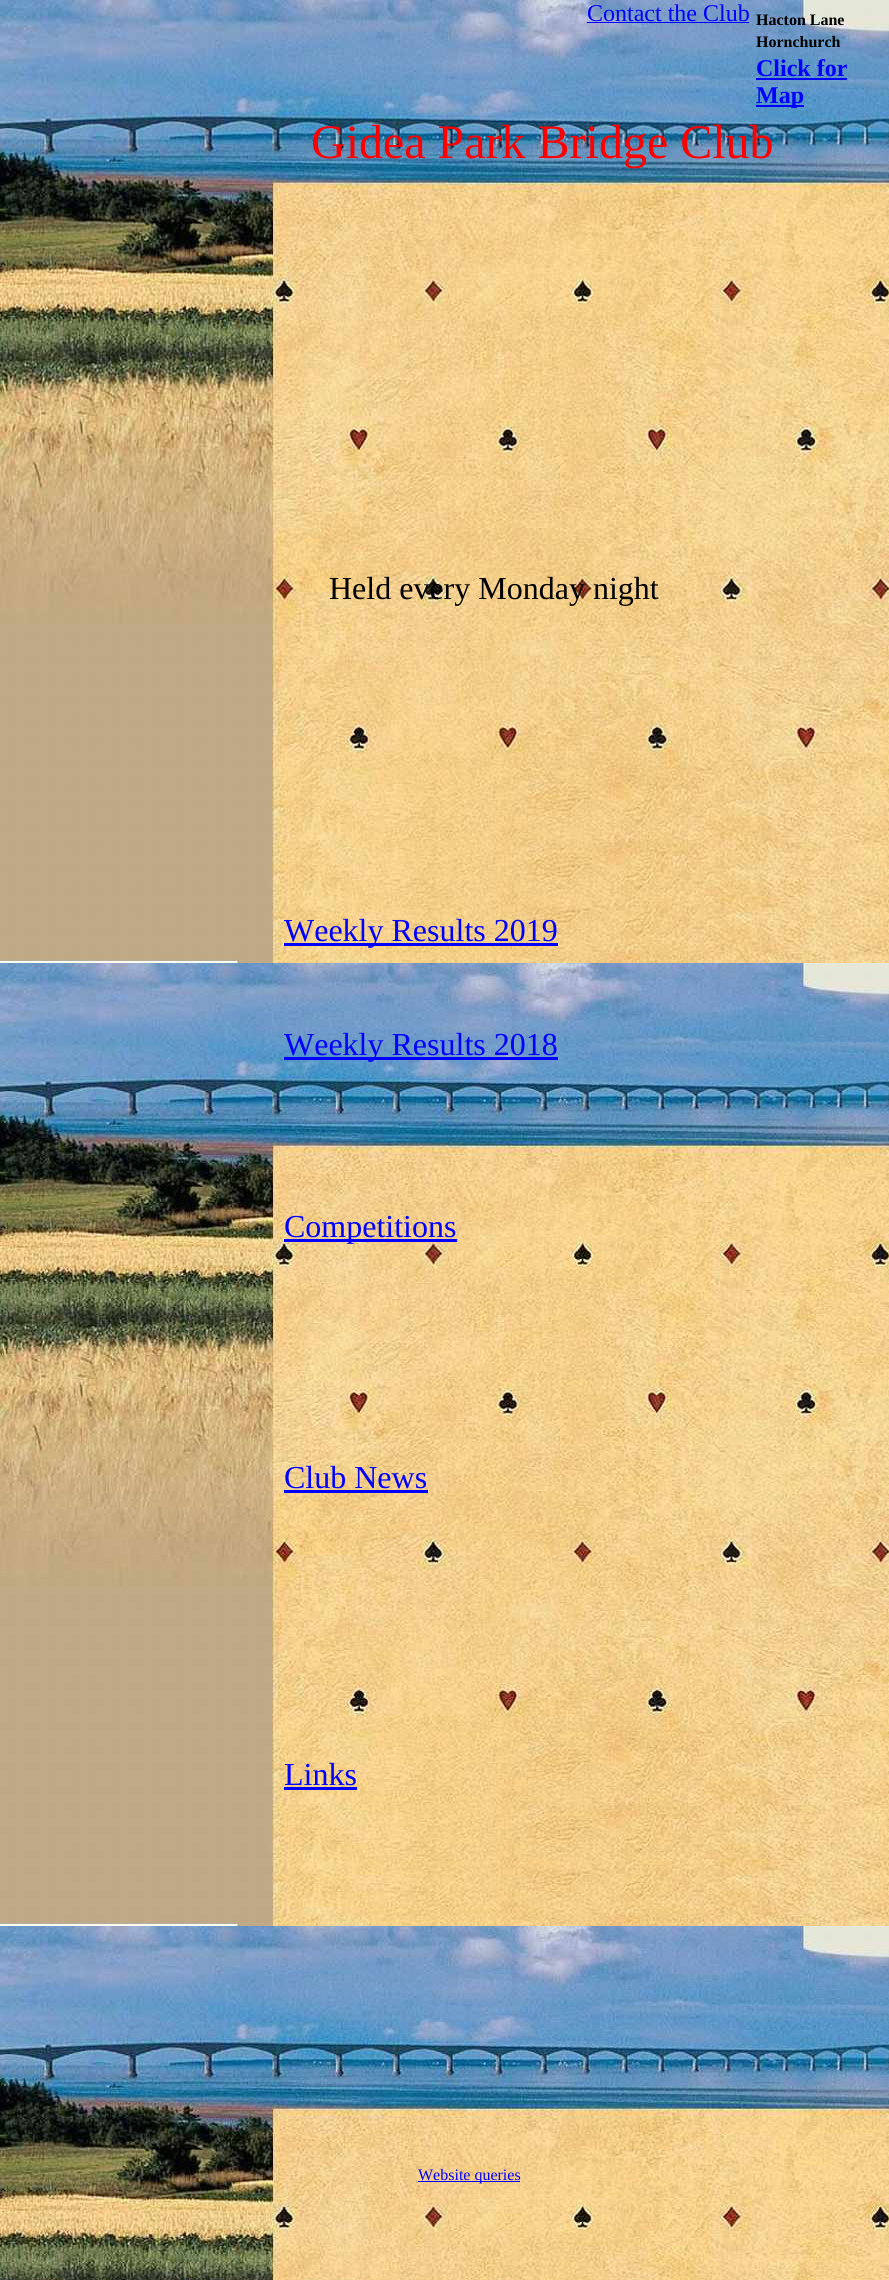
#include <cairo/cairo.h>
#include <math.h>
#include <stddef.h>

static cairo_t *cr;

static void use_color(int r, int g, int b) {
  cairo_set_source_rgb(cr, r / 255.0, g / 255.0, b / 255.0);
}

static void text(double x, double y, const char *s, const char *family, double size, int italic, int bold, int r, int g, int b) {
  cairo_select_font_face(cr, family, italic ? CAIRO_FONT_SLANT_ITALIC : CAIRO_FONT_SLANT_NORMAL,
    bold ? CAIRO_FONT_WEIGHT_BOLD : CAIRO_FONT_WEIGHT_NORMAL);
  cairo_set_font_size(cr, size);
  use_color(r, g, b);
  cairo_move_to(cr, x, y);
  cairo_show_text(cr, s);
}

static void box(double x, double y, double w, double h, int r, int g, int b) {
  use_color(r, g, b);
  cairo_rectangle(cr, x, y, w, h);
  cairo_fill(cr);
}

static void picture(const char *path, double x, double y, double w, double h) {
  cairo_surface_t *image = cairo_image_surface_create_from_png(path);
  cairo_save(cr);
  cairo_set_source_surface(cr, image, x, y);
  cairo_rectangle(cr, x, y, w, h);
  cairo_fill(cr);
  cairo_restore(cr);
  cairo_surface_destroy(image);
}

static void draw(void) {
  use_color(255, 255, 255);
  cairo_paint(cr);
  picture("img_01.png", 0, 0, 889, 2280);
  box(587, 22, 162, 1, 0, 0, 255);
  box(756, 78, 91, 2, 0, 0, 255);
  box(756, 105, 48, 2, 0, 0, 255);
  box(284, 943, 274, 3, 0, 0, 255);
  box(284, 1057, 274, 3, 0, 0, 255);
  box(284, 1239, 173, 3, 0, 0, 255);
  box(284, 1490, 144, 3, 0, 0, 255);
  box(284, 1787, 73, 3, 0, 0, 255);
  box(418, 2181, 102, 1, 0, 0, 255);
  text(587, 21, "Contact the Club", "Liberation Serif", 24, 0, 0, 0, 0, 255);
  text(756, 25, "Hacton Lane", "Liberation Serif", 16, 0, 1, 0, 0, 0);
  text(756, 47, "Hornchurch", "Liberation Serif", 16, 0, 1, 0, 0, 0);
  text(756, 76, "Click for", "Liberation Serif", 24, 0, 1, 0, 0, 255);
  text(756, 103, "Map", "Liberation Serif", 24, 0, 1, 0, 0, 255);
  text(311, 158, "Gidea Park Bridge Club", "Liberation Serif", 48, 0, 0, 255, 0, 0);
  text(329, 599, "Held every Monday night", "Liberation Serif", 32, 0, 0, 0, 0, 0);
  text(284, 941, "Weekly Results 2019", "Liberation Serif", 32, 0, 0, 0, 0, 255);
  text(284, 1055, "Weekly Results 2018", "Liberation Serif", 32, 0, 0, 0, 0, 255);
  text(284, 1237, "Competitions", "Liberation Serif", 32, 0, 0, 0, 0, 255);
  text(284, 1488, "Club News", "Liberation Serif", 32, 0, 0, 0, 0, 255);
  text(284, 1785, "Links", "Liberation Serif", 32, 0, 0, 0, 0, 255);
  text(418, 2180, "Website queries", "Liberation Serif", 16, 0, 0, 0, 0, 255);
}

int main(void) {
  cairo_surface_t *surface = cairo_image_surface_create(CAIRO_FORMAT_RGB24, 889, 2280);
  cr = cairo_create(surface);
  cairo_font_options_t *options = cairo_font_options_create();
  cairo_font_options_set_hint_metrics(options, CAIRO_HINT_METRICS_OFF);
  cairo_font_options_set_hint_style(options, CAIRO_HINT_STYLE_NONE);
  cairo_set_font_options(cr, options);
  cairo_set_miter_limit(cr, 4);
  draw();
  cairo_surface_write_to_png(surface, "out.png");
  cairo_font_options_destroy(options);
  cairo_destroy(cr);
  cairo_surface_destroy(surface);
  return 0;
}
